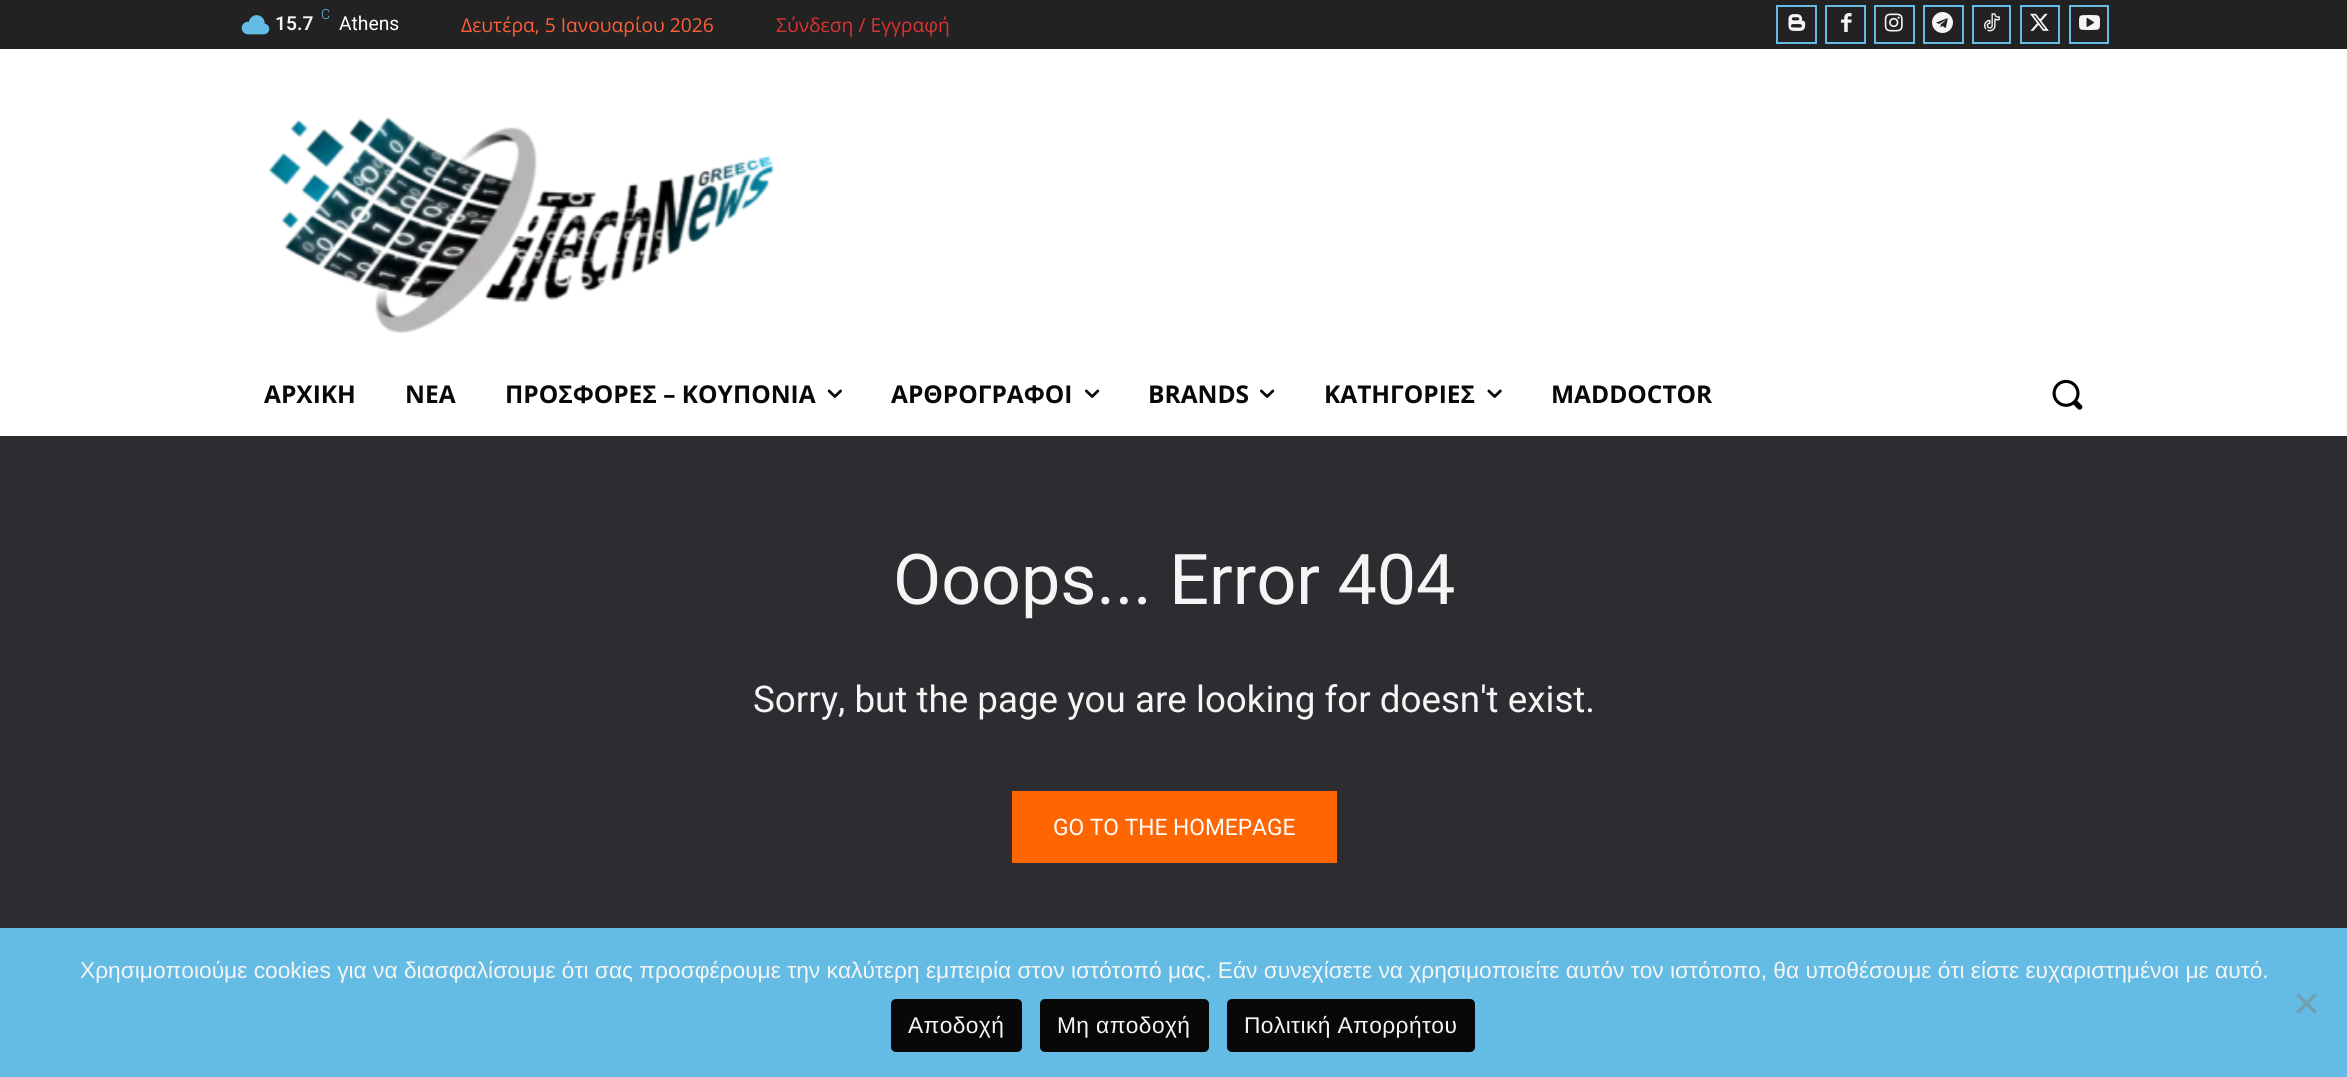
#include <cairo/cairo.h>
#include <math.h>
#include <stddef.h>

static cairo_t *cr;

static void use_color(int r, int g, int b) {
  cairo_set_source_rgb(cr, r / 255.0, g / 255.0, b / 255.0);
}

static void text(double x, double y, const char *s, const char *family, double size, int italic, int bold, int r, int g, int b) {
  cairo_select_font_face(cr, family, italic ? CAIRO_FONT_SLANT_ITALIC : CAIRO_FONT_SLANT_NORMAL,
    bold ? CAIRO_FONT_WEIGHT_BOLD : CAIRO_FONT_WEIGHT_NORMAL);
  cairo_set_font_size(cr, size);
  use_color(r, g, b);
  cairo_move_to(cr, x, y);
  cairo_show_text(cr, s);
}

static void spaced_text(double x, double y, const char *s, double letter, double word) {
  cairo_move_to(cr, x, y);
  while (*s) {
    char ch[5] = {0};
    int n = 0;
    do ch[n++] = *s++; while ((*s & 0xC0) == 0x80);
    cairo_show_text(cr, ch);
    cairo_rel_move_to(cr, letter + word * (*ch == ' '), 0);
  }
}

static void box(double x, double y, double w, double h, int r, int g, int b) {
  use_color(r, g, b);
  cairo_rectangle(cr, x, y, w, h);
  cairo_fill(cr);
}

static void round_rect(double x, double y, double w, double h, double r) {
  cairo_new_sub_path(cr);
  cairo_arc(cr, x + w - r, y + h - r, r, 0, M_PI / 2);
  cairo_arc(cr, x + r, y + h - r, r, M_PI / 2, M_PI);
  cairo_arc(cr, x + r, y + r, r, M_PI, 1.5 * M_PI);
  cairo_arc(cr, x + w - r, y + r, r, 1.5 * M_PI, 2 * M_PI);
  cairo_close_path(cr);
}

static void picture(const char *path, double x, double y, double w, double h) {
  cairo_surface_t *image = cairo_image_surface_create_from_png(path);
  cairo_save(cr);
  cairo_set_source_surface(cr, image, x, y);
  cairo_rectangle(cr, x, y, w, h);
  cairo_fill(cr);
  cairo_restore(cr);
  cairo_surface_destroy(image);
}

static void draw(void) {
  use_color(45, 45, 49);
  cairo_paint(cr);
  box(0, 0, 2347, 49, 34, 34, 34);
  picture("img_01.png", 241, 15, 29, 20);
  cairo_rectangle(cr, 1777, 6, 39, 37);
  use_color(100, 187, 227);
  cairo_stroke(cr);
  picture("img_02.png", 1788, 14, 18, 17);
  cairo_rectangle(cr, 1826, 6, 39, 37);
  cairo_stroke(cr);
  picture("img_03.png", 1841, 13, 11, 19);
  cairo_rectangle(cr, 1875, 6, 39, 37);
  cairo_stroke(cr);
  picture("img_04.png", 1884, 13, 19, 19);
  cairo_rectangle(cr, 1924, 6, 39, 37);
  cairo_stroke(cr);
  picture("img_05.png", 1932, 12, 21, 21);
  cairo_rectangle(cr, 1973, 6, 37, 37);
  cairo_stroke(cr);
  picture("img_06.png", 1984, 13, 16, 19);
  cairo_rectangle(cr, 2021, 6, 38, 37);
  cairo_stroke(cr);
  picture("img_07.png", 2030, 13, 19, 18);
  cairo_rectangle(cr, 2070, 6, 38, 37);
  cairo_stroke(cr);
  picture("img_08.png", 2079, 15, 21, 15);
  box(0, 49, 2347, 387, 255, 255, 255);
  picture("img_09.png", 268, 117, 507, 216);
  picture("img_10.png", 827, 389, 15, 9);
  picture("img_11.png", 1085, 389, 15, 9);
  picture("img_11.png", 1260, 389, 15, 9);
  picture("img_12.png", 1487, 389, 15, 9);
  picture("img_13.png", 2052, 379, 31, 31);
  box(1012, 791, 325, 72, 255, 101, 1);
  box(0, 928, 2347, 149, 100, 187, 227);
  use_color(114, 158, 178);
  cairo_new_path(cr);
  cairo_move_to(cr, 2314.5, 993);
  cairo_line_to(cr, 2317, 995.5);
  cairo_line_to(cr, 2298.5, 1014);
  cairo_line_to(cr, 2296, 1011.5);
  cairo_close_path(cr);
  cairo_fill(cr);
  cairo_new_path(cr);
  cairo_move_to(cr, 2296, 995.5);
  cairo_line_to(cr, 2298.5, 993);
  cairo_line_to(cr, 2317, 1011.5);
  cairo_line_to(cr, 2314.5, 1014);
  cairo_close_path(cr);
  cairo_fill(cr);
  use_color(8, 8, 8);
  round_rect(891, 999, 131, 53, 5);
  cairo_fill(cr);
  round_rect(1040, 999, 169, 53, 5);
  cairo_fill(cr);
  round_rect(1227, 999, 248, 53, 5);
  cairo_fill(cr);
  text(321, 19, "C", "Roboto Light", 14, 0, 0, 100, 187, 227);
  text(275, 30, "15.7", "Roboto SemiBold", 19.25, 0, 0, 245, 245, 245);
  text(339, 30, "Athens", "Roboto", 19.25, 0, 0, 255, 255, 255);
  text(461, 32, "Δευτέρα, 5 Ιανουαρίου 2026", "Open Sans", 19.25, 0, 0, 254, 95, 55);
  text(776, 32, "Σύνδεση / Εγγραφή", "Open Sans", 19.25, 0, 0, 221, 51, 51);
  text(264, 403, "ΑΡΧΙΚΗ", "Open Sans", 24.5, 0, 1, 8, 8, 8);
  text(405, 403, "ΝΕΑ", "Open Sans", 24.5, 0, 1, 8, 8, 8);
  text(505, 403, "ΠΡΟΣΦΟΡΕΣ – ΚΟΥΠΟΝΙΑ", "Open Sans", 24.5, 0, 1, 8, 8, 8);
  text(891, 403, "ΑΡΘΡΟΓΡΑΦΟΙ", "Open Sans", 24.5, 0, 1, 8, 8, 8);
  text(1148, 403, "BRANDS", "Open Sans", 24.5, 0, 1, 8, 8, 8);
  text(1324, 403, "ΚΑΤΗΓΟΡΙΕΣ", "Open Sans", 24.5, 0, 1, 8, 8, 8);
  text(1551, 403, "MADDOCTOR", "Open Sans", 24.5, 0, 1, 8, 8, 8);
  text(893, 604, "Ooops... Error 404", "Roboto", 70, 0, 0, 245, 245, 245);
  text(753, 712, "Sorry, but the page you are looking for doesn't exist.", "Roboto", 36.75, 0, 0, 245, 245, 245);
  text(1053, 835, "GO TO THE HOMEPAGE", "Roboto", 22.75, 0, 0, 255, 255, 255);
  text(80, 978, "Χρησιμοποιούμε cookies για να διασφαλίσουμε ότι σας προσφέρουμε την καλύτερη εμπειρία στον ιστότοπό μας. Εάν συνεχίσετε να χρησιμοποιείτε αυτόν τον ιστότοπο, θα υποθέσουμε ότι είστε ευχαριστημένοι με αυτό.", "Liberation Sans", 22.75, 0, 0, 245, 245, 245);
  spaced_text(908, 1033, "Αποδοχή", 0.4, 0);
  spaced_text(1057, 1033, "Μη αποδοχή", 0.4, 0);
  spaced_text(1244, 1033, "Πολιτική Aπορρήτου", 0.4, 0);
}

int main(void) {
  cairo_surface_t *surface = cairo_image_surface_create(CAIRO_FORMAT_RGB24, 2347, 1077);
  cr = cairo_create(surface);
  cairo_font_options_t *options = cairo_font_options_create();
  cairo_font_options_set_hint_metrics(options, CAIRO_HINT_METRICS_OFF);
  cairo_font_options_set_hint_style(options, CAIRO_HINT_STYLE_NONE);
  cairo_set_font_options(cr, options);
  cairo_set_miter_limit(cr, 4);
  draw();
  cairo_surface_write_to_png(surface, "out.png");
  cairo_font_options_destroy(options);
  cairo_destroy(cr);
  cairo_surface_destroy(surface);
  return 0;
}
